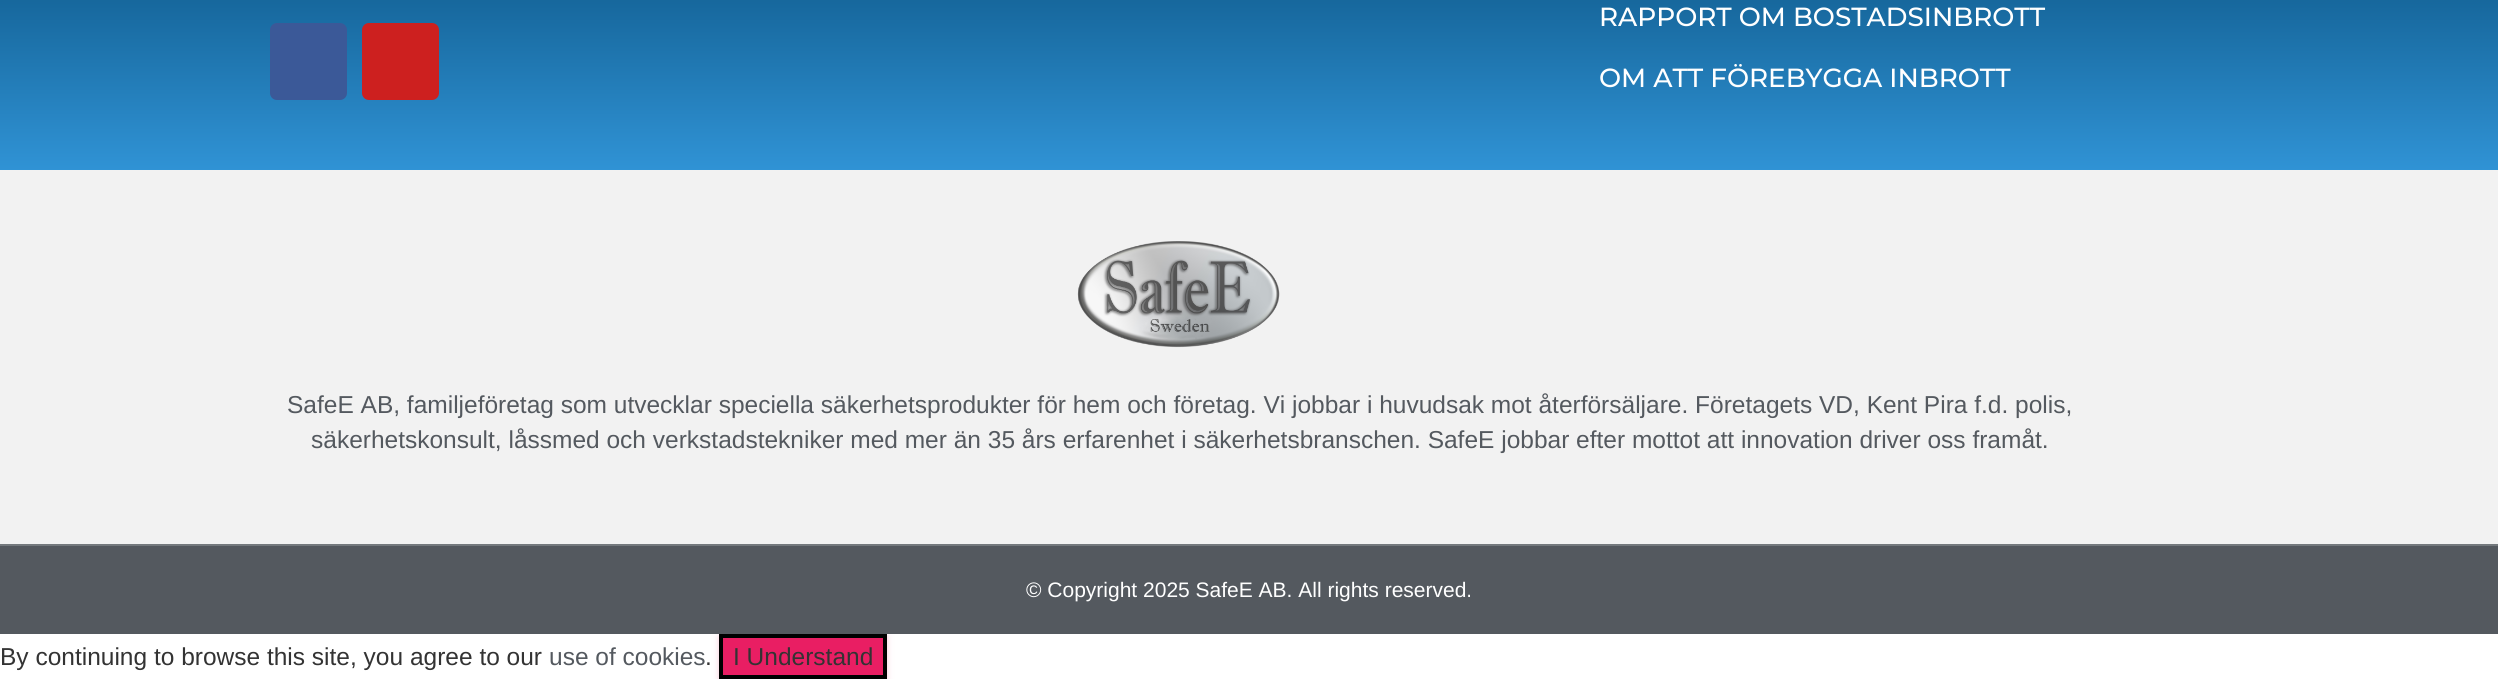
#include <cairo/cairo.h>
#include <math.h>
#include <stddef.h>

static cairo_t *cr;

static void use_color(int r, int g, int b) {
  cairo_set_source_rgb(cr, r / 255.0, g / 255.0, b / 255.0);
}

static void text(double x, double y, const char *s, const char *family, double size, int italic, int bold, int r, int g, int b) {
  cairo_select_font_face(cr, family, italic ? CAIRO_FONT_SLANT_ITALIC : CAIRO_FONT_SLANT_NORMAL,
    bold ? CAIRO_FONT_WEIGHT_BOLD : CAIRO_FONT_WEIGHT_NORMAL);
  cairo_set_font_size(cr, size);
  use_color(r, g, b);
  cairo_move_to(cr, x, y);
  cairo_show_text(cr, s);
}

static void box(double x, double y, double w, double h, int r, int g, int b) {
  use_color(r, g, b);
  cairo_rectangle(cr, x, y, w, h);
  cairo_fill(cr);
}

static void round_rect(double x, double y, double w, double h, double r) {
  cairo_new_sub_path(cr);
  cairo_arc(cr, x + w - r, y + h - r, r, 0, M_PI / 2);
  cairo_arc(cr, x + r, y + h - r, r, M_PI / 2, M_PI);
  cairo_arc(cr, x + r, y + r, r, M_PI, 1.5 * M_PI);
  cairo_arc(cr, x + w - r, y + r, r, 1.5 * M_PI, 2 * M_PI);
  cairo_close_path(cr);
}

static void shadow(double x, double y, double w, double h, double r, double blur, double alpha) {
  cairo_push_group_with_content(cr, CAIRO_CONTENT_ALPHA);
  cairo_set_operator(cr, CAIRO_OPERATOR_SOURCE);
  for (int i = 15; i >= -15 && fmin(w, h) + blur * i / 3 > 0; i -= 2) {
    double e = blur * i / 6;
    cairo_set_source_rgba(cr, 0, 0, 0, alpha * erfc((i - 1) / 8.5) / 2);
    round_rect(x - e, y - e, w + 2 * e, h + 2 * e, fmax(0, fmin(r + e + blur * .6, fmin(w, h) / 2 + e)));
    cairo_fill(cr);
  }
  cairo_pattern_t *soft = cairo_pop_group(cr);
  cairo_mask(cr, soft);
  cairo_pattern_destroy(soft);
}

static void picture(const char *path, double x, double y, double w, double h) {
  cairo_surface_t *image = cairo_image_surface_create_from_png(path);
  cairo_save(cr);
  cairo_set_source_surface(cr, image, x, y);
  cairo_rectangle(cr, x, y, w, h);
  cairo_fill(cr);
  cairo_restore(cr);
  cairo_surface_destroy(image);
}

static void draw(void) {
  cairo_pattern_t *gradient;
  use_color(255, 255, 255);
  cairo_paint(cr);
  gradient = cairo_pattern_create_linear(1250, -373, 1250, 170);
  cairo_pattern_add_color_stop_rgba(gradient, 0.41, 0, 0.255, 0.42, 1);
  cairo_pattern_add_color_stop_rgba(gradient, 1, 0.188, 0.576, 0.835, 1);
  cairo_set_source(cr, gradient);
  cairo_pattern_destroy(gradient);
  cairo_rectangle(cr, 0, 0, 2498, 170);
  cairo_fill(cr);
  use_color(59, 89, 152);
  round_rect(270, 23, 77, 77, 7);
  cairo_fill(cr);
  use_color(205, 32, 31);
  round_rect(362, 23, 77, 77, 7);
  cairo_fill(cr);
  box(0, 170, 2498, 374, 242, 242, 242);
  picture("img_01.png", 1077, 241, 203, 107);
  use_color(233, 30, 99);
  shadow(719, 635, 168, 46, 0, 4.5, 0.12);
  shadow(719, 637, 168, 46, 0, 2, 0.14);
  box(0, 546, 2498, 88, 84, 89, 95);
  box(0, 544, 2498, 2, 116, 121, 125);
  use_color(233, 30, 99);
  cairo_rectangle(cr, 721, 636, 164, 41);
  cairo_fill_preserve(cr);
  use_color(0, 0, 0);
  cairo_set_line_width(cr, 4);
  cairo_stroke(cr);
  text(1599, 26, "RAPPORT OM BOSTADSINBROTT", "Montserrat Medium", 26.25, 0, 0, 255, 255, 255);
  text(1599, 87, "OM ATT FÖREBYGGA INBROTT", "Montserrat Medium", 26.25, 0, 0, 255, 255, 255);
  text(287, 413, "SafeE AB, familjeföretag som utvecklar speciella säkerhetsprodukter för hem och företag. Vi jobbar i huvudsak mot återförsäljare. Företagets VD, Kent Pira f.d. polis,", "Liberation Sans", 24.5, 0, 0, 84, 89, 95);
  text(311, 448, "säkerhetskonsult, låssmed och verkstadstekniker med mer än 35 års erfarenhet i säkerhetsbranschen. SafeE jobbar efter mottot att innovation driver oss framåt.", "Liberation Sans", 24.5, 0, 0, 84, 89, 95);
  text(1026, 597, "© Copyright 2025 SafeE AB. All rights reserved.", "Liberation Sans", 21, 0, 0, 255, 255, 255);
  text(0, 665, "By continuing to browse this site, you agree to our", "Liberation Sans", 24.5, 0, 0, 51, 51, 51);
  text(549, 665, "use of cookies", "Liberation Sans", 24.5, 0, 0, 84, 89, 95);
  text(705, 665, ".", "Liberation Sans", 24.5, 0, 0, 51, 51, 51);
  text(733, 665, "I Understand", "Liberation Sans", 24.5, 0, 0, 51, 51, 51);
}

int main(void) {
  cairo_surface_t *surface = cairo_image_surface_create(CAIRO_FORMAT_RGB24, 2498, 679);
  cr = cairo_create(surface);
  cairo_font_options_t *options = cairo_font_options_create();
  cairo_font_options_set_hint_metrics(options, CAIRO_HINT_METRICS_OFF);
  cairo_font_options_set_hint_style(options, CAIRO_HINT_STYLE_NONE);
  cairo_set_font_options(cr, options);
  cairo_set_miter_limit(cr, 4);
  draw();
  cairo_surface_write_to_png(surface, "out.png");
  cairo_font_options_destroy(options);
  cairo_destroy(cr);
  cairo_surface_destroy(surface);
  return 0;
}
